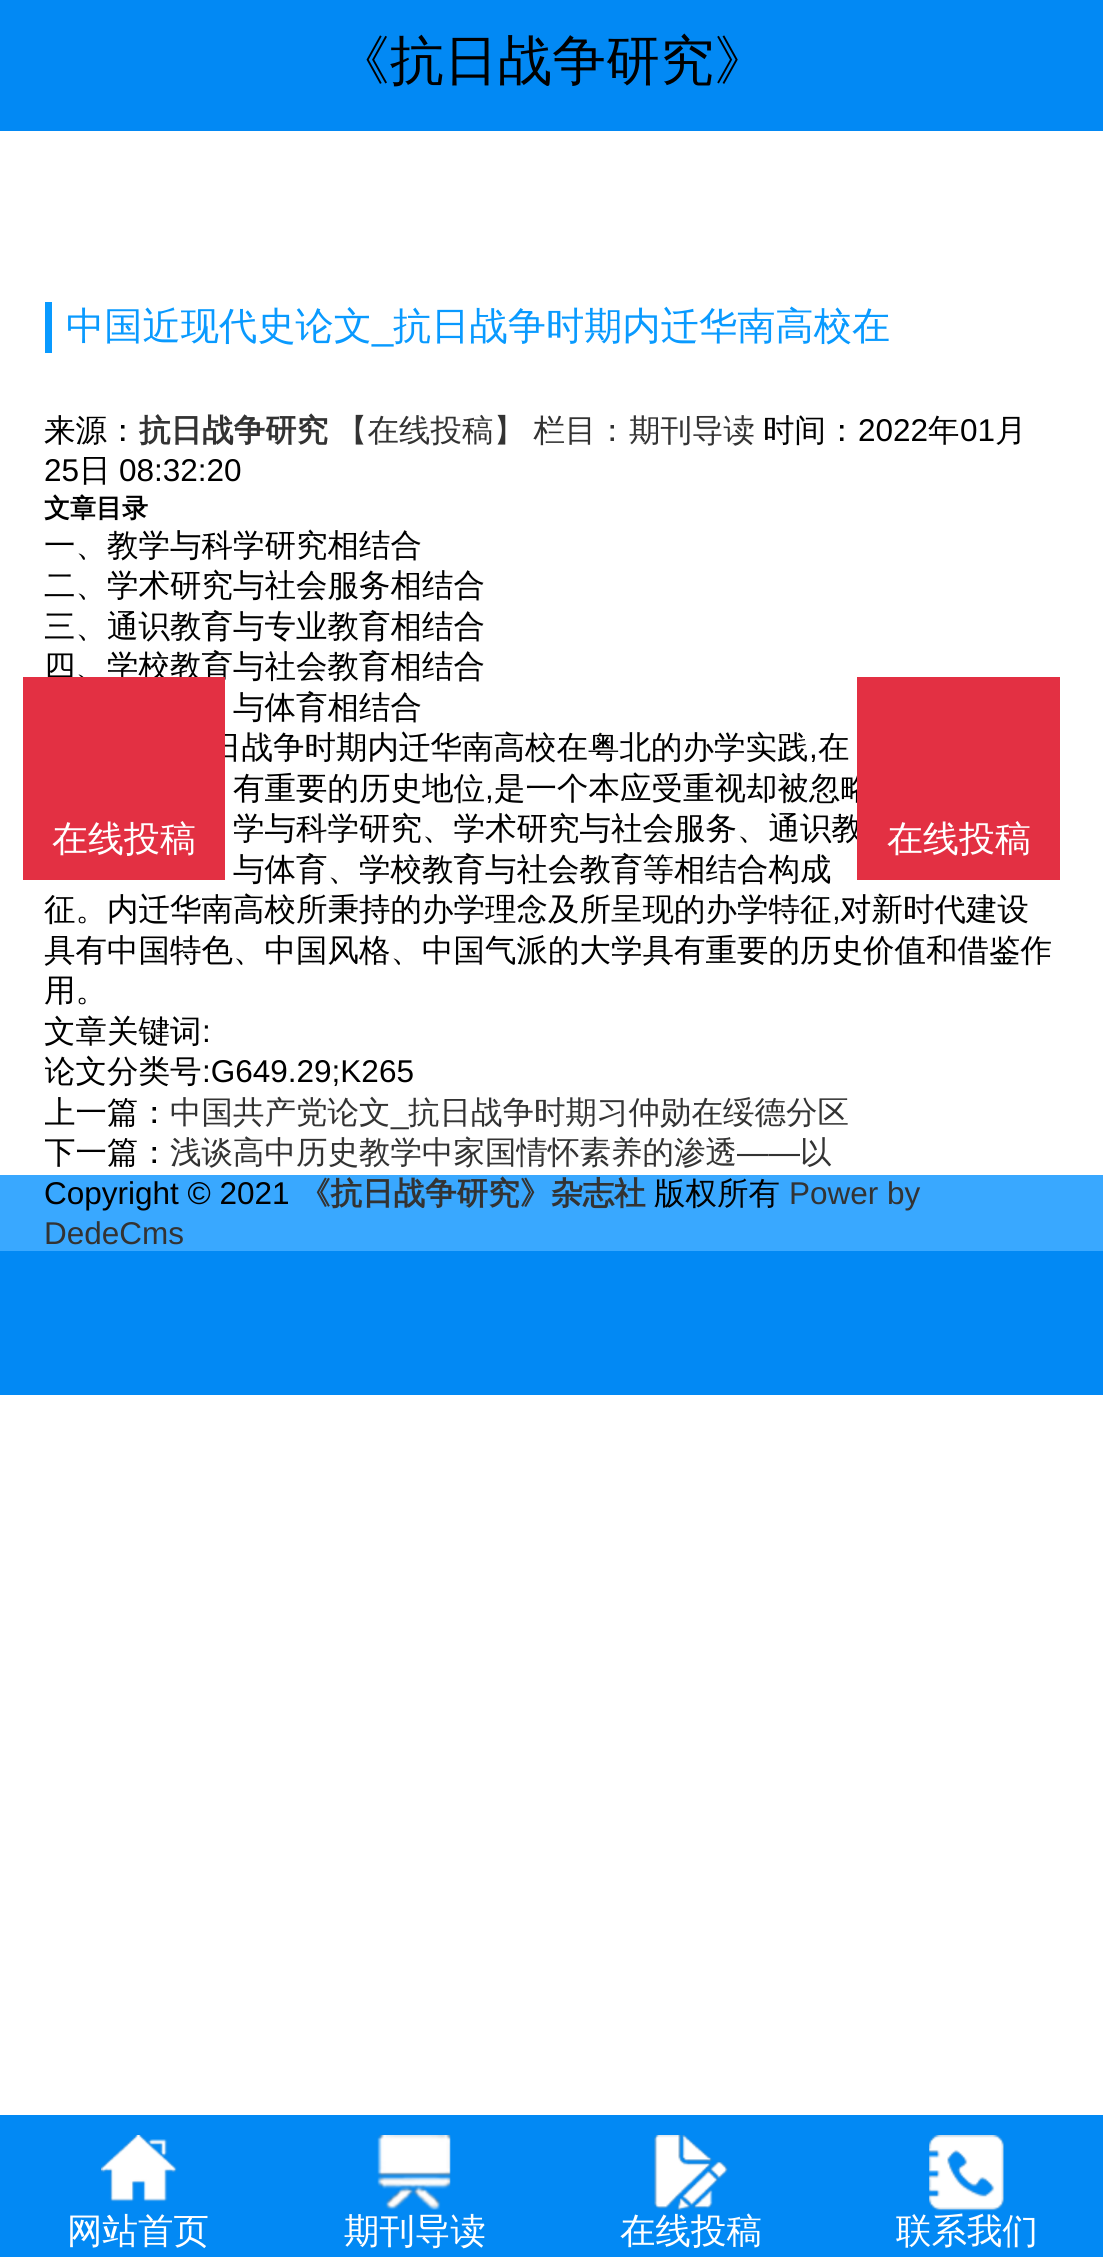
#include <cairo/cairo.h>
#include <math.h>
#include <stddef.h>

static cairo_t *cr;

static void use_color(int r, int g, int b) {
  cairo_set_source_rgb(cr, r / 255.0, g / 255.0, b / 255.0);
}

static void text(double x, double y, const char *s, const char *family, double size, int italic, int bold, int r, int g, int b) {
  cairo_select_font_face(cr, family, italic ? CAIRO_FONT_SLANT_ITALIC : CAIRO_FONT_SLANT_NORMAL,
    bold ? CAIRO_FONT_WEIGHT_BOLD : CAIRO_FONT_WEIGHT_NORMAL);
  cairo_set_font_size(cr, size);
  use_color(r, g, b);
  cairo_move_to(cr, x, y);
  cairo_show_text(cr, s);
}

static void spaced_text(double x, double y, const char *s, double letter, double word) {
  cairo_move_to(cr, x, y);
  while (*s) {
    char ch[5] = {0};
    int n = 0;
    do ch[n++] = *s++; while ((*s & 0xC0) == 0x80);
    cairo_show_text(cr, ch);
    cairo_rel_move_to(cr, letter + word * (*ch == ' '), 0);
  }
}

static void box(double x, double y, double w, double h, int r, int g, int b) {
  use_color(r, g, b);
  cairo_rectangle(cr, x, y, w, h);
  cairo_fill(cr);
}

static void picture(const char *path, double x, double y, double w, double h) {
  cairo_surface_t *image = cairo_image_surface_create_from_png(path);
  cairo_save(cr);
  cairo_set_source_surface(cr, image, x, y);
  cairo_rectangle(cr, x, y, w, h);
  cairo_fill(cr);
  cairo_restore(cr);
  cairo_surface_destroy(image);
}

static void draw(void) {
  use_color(255, 255, 255);
  cairo_paint(cr);
  box(0, 0, 1103, 131, 2, 137, 244);
  box(45, 302, 7, 51, 9, 154, 255);
  box(0, 1175, 1103, 76, 57, 168, 255);
  box(0, 1251, 1103, 144, 2, 137, 244);
  box(0, 2115, 1103, 142, 2, 137, 244);
  picture("img_01.png", 101, 2135, 76, 67);
  picture("img_02.png", 377, 2135, 74, 75);
  picture("img_03.png", 654, 2135, 74, 76);
  picture("img_04.png", 929, 2135, 75, 76);
  text(336, 79, "《抗日战争研究》", "WenQuanYi Zen Hei Medium", 54, 0, 0, 0, 0, 0);
  text(66, 339, "中国近现代史论文", "WenQuanYi Zen Hei Medium", 38.25, 0, 0, 9, 154, 255);
  text(393, 339, "抗日战争时期内迁华南高校在", "WenQuanYi Zen Hei Medium", 38.25, 0, 0, 9, 154, 255);
  text(372, 339, "_", "Liberation Sans", 38.25, 0, 0, 9, 154, 255);
  text(44, 441, "来源：", "WenQuanYi Zen Hei Medium", 31.5, 0, 0, 0, 0, 0);
  text(139, 441, "抗日战争研究", "WenQuanYi Zen Hei", 31.5, 0, 1, 51, 51, 51);
  cairo_select_font_face(cr, "WenQuanYi Zen Hei Medium", CAIRO_FONT_SLANT_NORMAL, CAIRO_FONT_WEIGHT_NORMAL);
  spaced_text(336, 441, "【在线投稿】 栏目：", 0, -1);
  text(629, 441, "期刊导读", "WenQuanYi Zen Hei Medium", 31.5, 0, 0, 51, 51, 51);
  text(763, 441, "时间：", "WenQuanYi Zen Hei Medium", 31.5, 0, 0, 0, 0, 0);
  text(858, 441, "2022", "Liberation Sans", 31.5, 0, 0, 0, 0, 0);
  text(928, 441, "年", "WenQuanYi Zen Hei Medium", 31.5, 0, 0, 0, 0, 0);
  text(960, 441, "01", "Liberation Sans", 31.5, 0, 0, 0, 0, 0);
  text(995, 441, "月", "WenQuanYi Zen Hei Medium", 31.5, 0, 0, 0, 0, 0);
  text(44, 481, "25", "Liberation Sans", 31.5, 0, 0, 0, 0, 0);
  text(79, 481, "日", "WenQuanYi Zen Hei Medium", 31.5, 0, 0, 0, 0, 0);
  text(119, 481, "08:32:20", "Liberation Sans", 31.5, 0, 0, 0, 0, 0);
  text(44, 517, "文章目录", "WenQuanYi Zen Hei", 26, 0, 1, 0, 0, 0);
  text(44, 556, "一、教学与科学研究相结合", "WenQuanYi Zen Hei Medium", 31.5, 0, 0, 0, 0, 0);
  text(44, 596, "二、学术研究与社会服务相结合", "WenQuanYi Zen Hei Medium", 31.5, 0, 0, 0, 0, 0);
  text(44, 637, "三、通识教育与专业教育相结合", "WenQuanYi Zen Hei Medium", 31.5, 0, 0, 0, 0, 0);
  text(44, 677, "四、学校教育与社会教育相结合", "WenQuanYi Zen Hei Medium", 31.5, 0, 0, 0, 0, 0);
  text(233, 718, "与体育相结合", "WenQuanYi Zen Hei Medium", 31.5, 0, 0, 0, 0, 0);
  text(210, 758, "日战争时期内迁华南高校在粤北的办学实践", "WenQuanYi Zen Hei Medium", 31.5, 0, 0, 0, 0, 0);
  text(809, 758, ",", "Liberation Sans", 31.5, 0, 0, 0, 0, 0);
  text(818, 758, "在", "WenQuanYi Zen Hei Medium", 31.5, 0, 0, 0, 0, 0);
  text(233, 799, "有重要的历史地位", "WenQuanYi Zen Hei Medium", 31.5, 0, 0, 0, 0, 0);
  text(485, 799, ",", "Liberation Sans", 31.5, 0, 0, 0, 0, 0);
  text(494, 799, "是一个本应受重视却被忽略", "WenQuanYi Zen Hei Medium", 31.5, 0, 0, 0, 0, 0);
  text(233, 839, "学与科学研究、学术研究与社会服务、通识教", "WenQuanYi Zen Hei Medium", 31.5, 0, 0, 0, 0, 0);
  text(233, 880, "与体育、学校教育与社会教育等相结合构成", "WenQuanYi Zen Hei Medium", 31.5, 0, 0, 0, 0, 0);
  text(44, 920, "征。内迁华南高校所秉持的办学理念及所呈现的办学特征", "WenQuanYi Zen Hei Medium", 31.5, 0, 0, 0, 0, 0);
  text(832, 920, ",", "Liberation Sans", 31.5, 0, 0, 0, 0, 0);
  text(840, 920, "对新时代建设", "WenQuanYi Zen Hei Medium", 31.5, 0, 0, 0, 0, 0);
  text(44, 961, "具有中国特色、中国风格、中国气派的大学具有重要的历史价值和借鉴作", "WenQuanYi Zen Hei Medium", 31.5, 0, 0, 0, 0, 0);
  text(44, 1001, "用。", "WenQuanYi Zen Hei Medium", 31.5, 0, 0, 0, 0, 0);
  text(44, 1042, "文章关键词", "WenQuanYi Zen Hei Medium", 31.5, 0, 0, 0, 0, 0);
  text(202, 1042, ":", "Liberation Sans", 31.5, 0, 0, 0, 0, 0);
  cairo_save(cr);
  cairo_rectangle(cr, 45, 243, 1015, 932);
  cairo_clip(cr);
  text(44, 1082, "论文分类号", "WenQuanYi Zen Hei Medium", 31.5, 0, 0, 0, 0, 0);
  cairo_restore(cr);
  text(202, 1082, ":G649.29;K265", "Liberation Sans", 31.5, 0, 0, 0, 0, 0);
  cairo_save(cr);
  cairo_rectangle(cr, 45, 243, 1015, 932);
  cairo_clip(cr);
  text(44, 1123, "上一篇：", "WenQuanYi Zen Hei Medium", 31.5, 0, 0, 0, 0, 0);
  cairo_restore(cr);
  text(170, 1123, "中国共产党论文", "WenQuanYi Zen Hei Medium", 31.5, 0, 0, 51, 51, 51);
  text(408, 1123, "抗日战争时期习仲勋在绥德分区", "WenQuanYi Zen Hei Medium", 31.5, 0, 0, 51, 51, 51);
  text(391, 1123, "_", "Liberation Sans", 31.5, 0, 0, 51, 51, 51);
  cairo_save(cr);
  cairo_rectangle(cr, 45, 243, 1015, 932);
  cairo_clip(cr);
  text(44, 1163, "下一篇：", "WenQuanYi Zen Hei Medium", 31.5, 0, 0, 0, 0, 0);
  cairo_restore(cr);
  text(170, 1163, "浅谈高中历史教学中家国情怀素养的渗透", "WenQuanYi Zen Hei Medium", 31.5, 0, 0, 51, 51, 51);
  text(737, 1163, "——", "Liberation Sans", 31.5, 0, 0, 51, 51, 51);
  text(800, 1163, "以", "WenQuanYi Zen Hei Medium", 31.5, 0, 0, 51, 51, 51);
  box(23, 677, 202, 203, 227, 48, 67);
  text(52, 851, "在线投稿", "WenQuanYi Zen Hei Medium", 36, 0, 0, 255, 255, 255);
  box(857, 677, 203, 203, 227, 48, 67);
  text(887, 851, "在线投稿", "WenQuanYi Zen Hei Medium", 36, 0, 0, 255, 255, 255);
  text(44, 1204, "Copyright © 2021", "Liberation Sans", 31.5, 0, 0, 0, 0, 0);
  text(299, 1204, "《抗日战争研究》杂志社", "WenQuanYi Zen Hei", 31.5, 0, 1, 51, 51, 51);
  text(654, 1204, "版权所有", "WenQuanYi Zen Hei Medium", 31.5, 0, 0, 0, 0, 0);
  text(789, 1204, "Power by", "Liberation Sans", 31.5, 0, 0, 51, 51, 51);
  text(44, 1244, "DedeCms", "Liberation Sans", 31.5, 0, 0, 51, 51, 51);
  text(67, 2243, "网站首页", "WenQuanYi Zen Hei Medium", 35.5, 0, 0, 255, 255, 255);
  text(344, 2243, "期刊导读", "WenQuanYi Zen Hei Medium", 35.5, 0, 0, 255, 255, 255);
  text(620, 2243, "在线投稿", "WenQuanYi Zen Hei Medium", 35.5, 0, 0, 255, 255, 255);
  text(896, 2243, "联系我们", "WenQuanYi Zen Hei Medium", 35.5, 0, 0, 255, 255, 255);
}

int main(void) {
  cairo_surface_t *surface = cairo_image_surface_create(CAIRO_FORMAT_RGB24, 1103, 2257);
  cr = cairo_create(surface);
  cairo_font_options_t *options = cairo_font_options_create();
  cairo_font_options_set_hint_metrics(options, CAIRO_HINT_METRICS_OFF);
  cairo_font_options_set_hint_style(options, CAIRO_HINT_STYLE_NONE);
  cairo_set_font_options(cr, options);
  cairo_set_miter_limit(cr, 4);
  draw();
  cairo_surface_write_to_png(surface, "out.png");
  cairo_font_options_destroy(options);
  cairo_destroy(cr);
  cairo_surface_destroy(surface);
  return 0;
}
